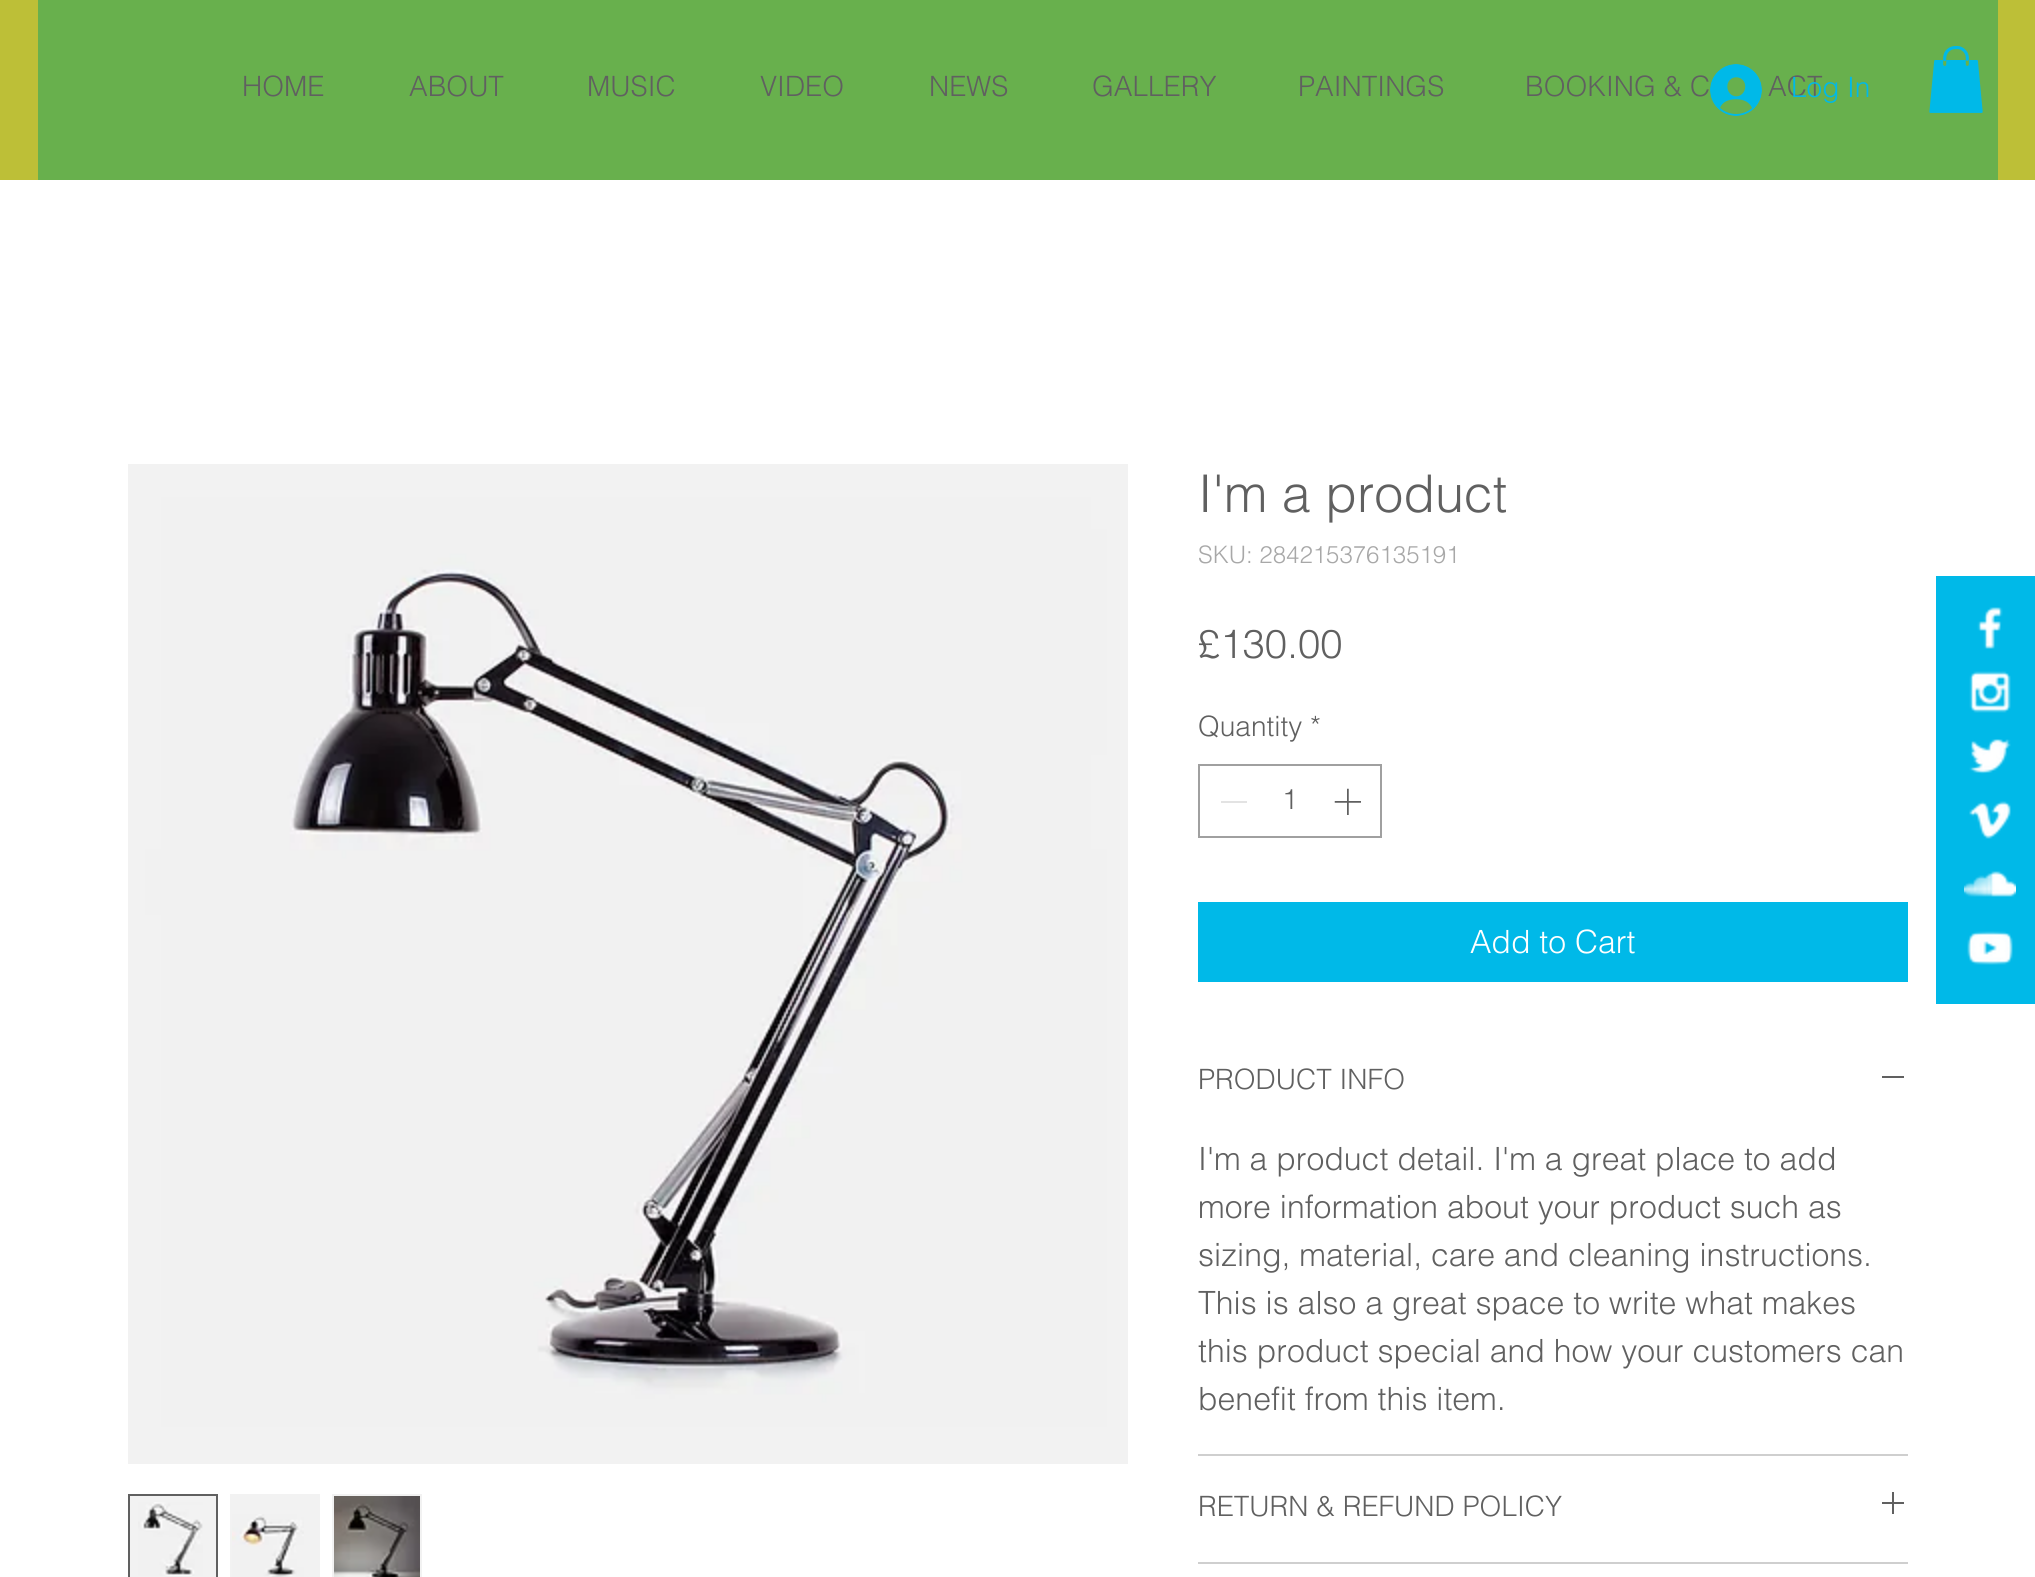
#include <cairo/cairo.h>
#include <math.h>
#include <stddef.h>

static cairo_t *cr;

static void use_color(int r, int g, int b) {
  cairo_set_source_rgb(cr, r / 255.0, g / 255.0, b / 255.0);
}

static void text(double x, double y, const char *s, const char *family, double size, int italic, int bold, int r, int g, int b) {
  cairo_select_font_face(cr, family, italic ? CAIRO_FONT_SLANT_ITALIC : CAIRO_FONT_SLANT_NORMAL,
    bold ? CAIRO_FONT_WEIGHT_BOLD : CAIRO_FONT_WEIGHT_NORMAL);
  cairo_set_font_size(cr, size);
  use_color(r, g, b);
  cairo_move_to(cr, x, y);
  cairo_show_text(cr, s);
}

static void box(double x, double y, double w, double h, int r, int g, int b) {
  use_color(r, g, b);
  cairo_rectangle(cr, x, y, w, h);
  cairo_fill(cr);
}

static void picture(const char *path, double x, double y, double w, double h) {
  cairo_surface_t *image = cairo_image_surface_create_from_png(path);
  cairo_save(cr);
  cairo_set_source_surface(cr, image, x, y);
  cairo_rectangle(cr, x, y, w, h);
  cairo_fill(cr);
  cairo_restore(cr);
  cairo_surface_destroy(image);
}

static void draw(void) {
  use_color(255, 255, 255);
  cairo_paint(cr);
  box(0, 0, 2035, 180, 189, 191, 55);
  box(38, 0, 1960, 180, 104, 176, 77);
  picture("img_01.png", 1710, 64, 52, 52);
  picture("img_02.png", 1929, 46, 54, 67);
  cairo_rectangle(cr, 129, 465, 998, 998);
  use_color(242, 242, 242);
  cairo_stroke(cr);
  picture("img_03.png", 130, 466, 996, 996);
  cairo_rectangle(cr, 129, 1495, 88, 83);
  cairo_fill_preserve(cr);
  use_color(96, 96, 96);
  cairo_stroke(cr);
  picture("img_04.png", 138, 1502, 65, 74);
  box(230, 1494, 90, 83, 242, 242, 242);
  picture("img_05.png", 232, 1514, 72, 63);
  box(332, 1494, 90, 83, 242, 242, 242);
  picture("img_06.png", 334, 1496, 86, 81);
  cairo_rectangle(cr, 1199, 765, 182, 72);
  use_color(160, 160, 160);
  cairo_stroke(cr);
  box(1221, 801, 26, 2, 227, 227, 227);
  picture("img_07.png", 1334, 788, 27, 27);
  box(1198, 902, 710, 80, 0, 185, 232);
  box(1198, 1454, 710, 2, 207, 207, 207);
  box(1882, 1076, 22, 2, 96, 96, 96);
  box(1198, 1562, 710, 2, 207, 207, 207);
  picture("img_08.png", 1882, 1492, 22, 22);
  box(1936, 576, 99, 428, 0, 185, 232);
  picture("img_09.png", 1977, 607, 26, 42);
  picture("img_10.png", 1969, 671, 42, 42);
  picture("img_11.png", 1969, 739, 42, 35);
  picture("img_12.png", 1969, 801, 42, 38);
  picture("img_13.png", 1964, 871, 52, 26);
  picture("img_14.png", 1967, 931, 46, 34);
  text(242, 96, "HOME", "helvetica Light", 28, 0, 0, 96, 96, 96);
  text(409, 96, "ABOUT", "helvetica Light", 28, 0, 0, 96, 96, 96);
  text(587, 96, "MUSIC", "helvetica Light", 28, 0, 0, 96, 96, 96);
  text(760, 96, "VIDEO", "helvetica Light", 28, 0, 0, 96, 96, 96);
  text(929, 96, "NEWS", "helvetica Light", 28, 0, 0, 96, 96, 96);
  text(1092, 96, "GALLERY", "helvetica Light", 28, 0, 0, 96, 96, 96);
  text(1298, 96, "PAINTINGS", "helvetica Light", 28, 0, 0, 96, 96, 96);
  text(1525, 96, "BOOKING & C", "helvetica Light", 28, 0, 0, 96, 96, 96);
  text(1768, 96, "ACT", "helvetica Light", 28, 0, 0, 96, 96, 96);
  text(1791, 97, "Log In", "helvetica Light", 28, 0, 0, 0, 185, 232);
  text(1198, 512, "I'm a product", "helvetica Light", 52, 0, 0, 96, 96, 96);
  text(1198, 563, "SKU: 284215376135191", "helvetica Light", 24, 0, 0, 168, 168, 168);
  text(1198, 658, "£130.00", "helvetica Light", 40, 0, 0, 96, 96, 96);
  text(1198, 736, "Quantity *", "helvetica Light", 28, 0, 0, 96, 96, 96);
  text(1282, 809, "1", "helvetica Light", 28, 0, 0, 96, 96, 96);
  text(1470, 953, "Add to Cart", "helvetica Light", 32, 0, 0, 255, 255, 255);
  text(1198, 1089, "PRODUCT INFO", "helvetica Light", 28, 0, 0, 96, 96, 96);
  text(1198, 1170, "I'm a product detail. I'm a great place to add", "helvetica Light", 32, 0, 0, 96, 96, 96);
  text(1198, 1218, "more information about your product such as", "helvetica Light", 32, 0, 0, 96, 96, 96);
  text(1198, 1266, "sizing, material, care and cleaning instructions.", "helvetica Light", 32, 0, 0, 96, 96, 96);
  text(1198, 1314, "This is also a great space to write what makes", "helvetica Light", 32, 0, 0, 96, 96, 96);
  text(1198, 1362, "this product special and how your customers can", "helvetica Light", 32, 0, 0, 96, 96, 96);
  text(1198, 1410, "benefit from this item.", "helvetica Light", 32, 0, 0, 96, 96, 96);
  text(1198, 1516, "RETURN & REFUND POLICY", "helvetica Light", 28, 0, 0, 96, 96, 96);
}

int main(void) {
  cairo_surface_t *surface = cairo_image_surface_create(CAIRO_FORMAT_RGB24, 2035, 1577);
  cr = cairo_create(surface);
  cairo_font_options_t *options = cairo_font_options_create();
  cairo_font_options_set_hint_metrics(options, CAIRO_HINT_METRICS_OFF);
  cairo_font_options_set_hint_style(options, CAIRO_HINT_STYLE_NONE);
  cairo_set_font_options(cr, options);
  cairo_set_miter_limit(cr, 4);
  draw();
  cairo_surface_write_to_png(surface, "out.png");
  cairo_font_options_destroy(options);
  cairo_destroy(cr);
  cairo_surface_destroy(surface);
  return 0;
}
